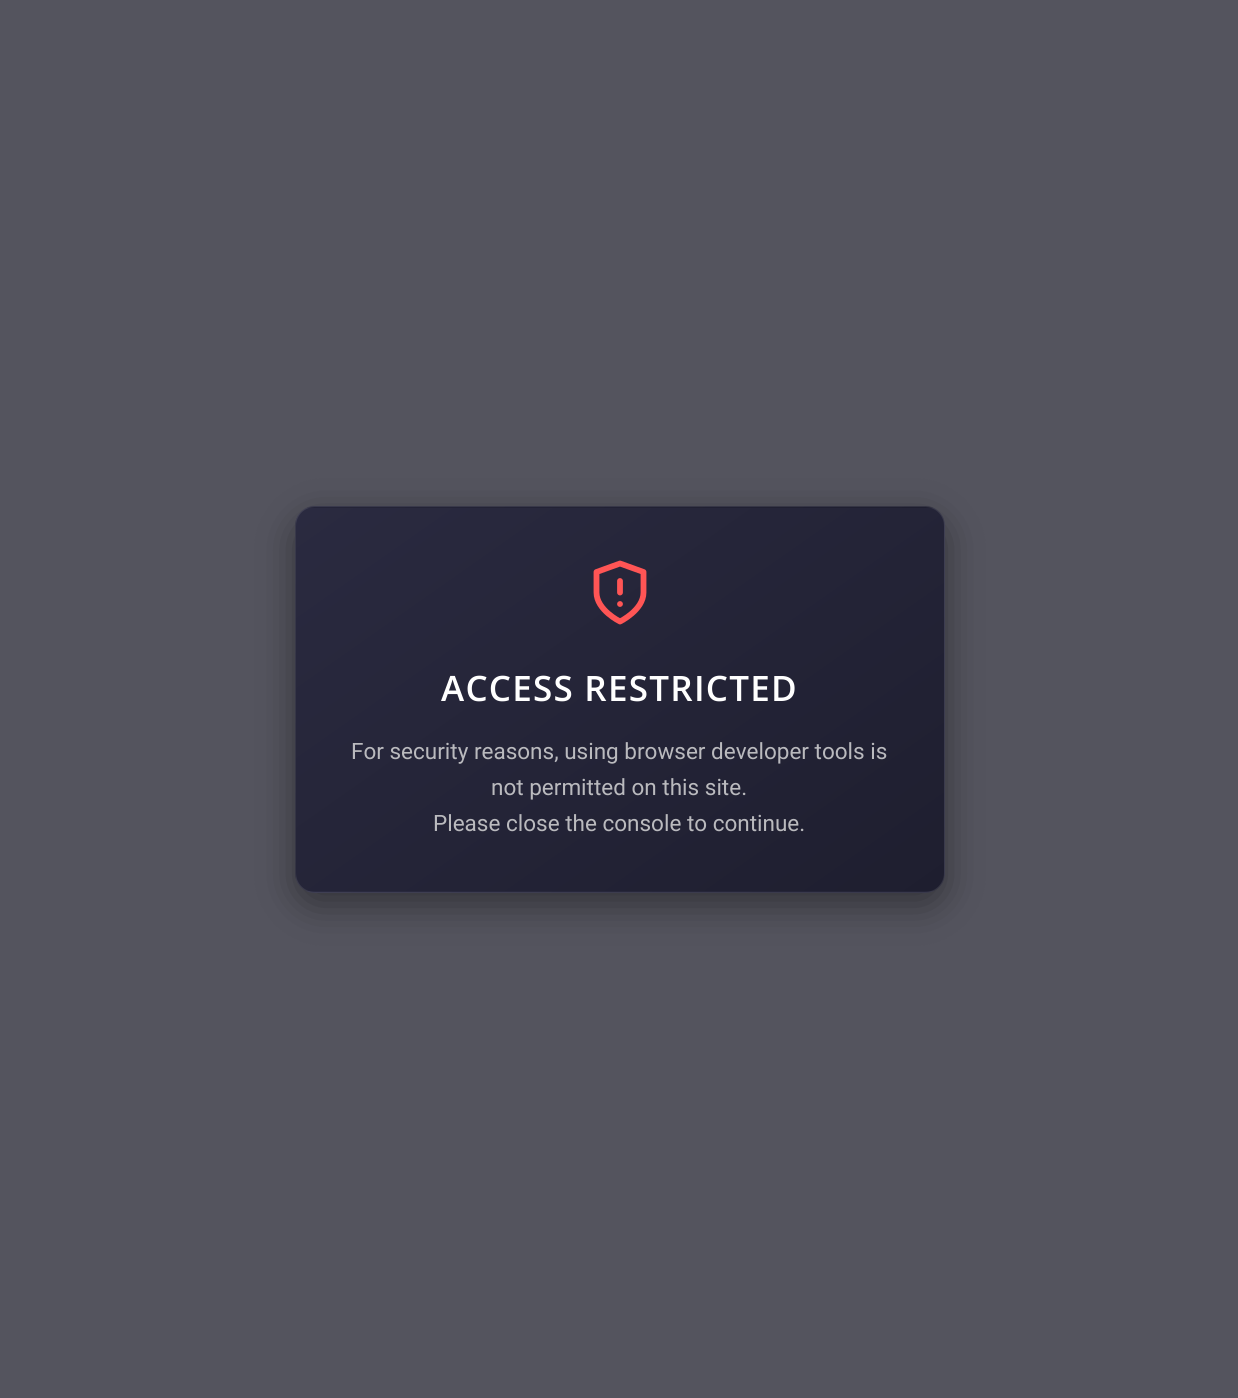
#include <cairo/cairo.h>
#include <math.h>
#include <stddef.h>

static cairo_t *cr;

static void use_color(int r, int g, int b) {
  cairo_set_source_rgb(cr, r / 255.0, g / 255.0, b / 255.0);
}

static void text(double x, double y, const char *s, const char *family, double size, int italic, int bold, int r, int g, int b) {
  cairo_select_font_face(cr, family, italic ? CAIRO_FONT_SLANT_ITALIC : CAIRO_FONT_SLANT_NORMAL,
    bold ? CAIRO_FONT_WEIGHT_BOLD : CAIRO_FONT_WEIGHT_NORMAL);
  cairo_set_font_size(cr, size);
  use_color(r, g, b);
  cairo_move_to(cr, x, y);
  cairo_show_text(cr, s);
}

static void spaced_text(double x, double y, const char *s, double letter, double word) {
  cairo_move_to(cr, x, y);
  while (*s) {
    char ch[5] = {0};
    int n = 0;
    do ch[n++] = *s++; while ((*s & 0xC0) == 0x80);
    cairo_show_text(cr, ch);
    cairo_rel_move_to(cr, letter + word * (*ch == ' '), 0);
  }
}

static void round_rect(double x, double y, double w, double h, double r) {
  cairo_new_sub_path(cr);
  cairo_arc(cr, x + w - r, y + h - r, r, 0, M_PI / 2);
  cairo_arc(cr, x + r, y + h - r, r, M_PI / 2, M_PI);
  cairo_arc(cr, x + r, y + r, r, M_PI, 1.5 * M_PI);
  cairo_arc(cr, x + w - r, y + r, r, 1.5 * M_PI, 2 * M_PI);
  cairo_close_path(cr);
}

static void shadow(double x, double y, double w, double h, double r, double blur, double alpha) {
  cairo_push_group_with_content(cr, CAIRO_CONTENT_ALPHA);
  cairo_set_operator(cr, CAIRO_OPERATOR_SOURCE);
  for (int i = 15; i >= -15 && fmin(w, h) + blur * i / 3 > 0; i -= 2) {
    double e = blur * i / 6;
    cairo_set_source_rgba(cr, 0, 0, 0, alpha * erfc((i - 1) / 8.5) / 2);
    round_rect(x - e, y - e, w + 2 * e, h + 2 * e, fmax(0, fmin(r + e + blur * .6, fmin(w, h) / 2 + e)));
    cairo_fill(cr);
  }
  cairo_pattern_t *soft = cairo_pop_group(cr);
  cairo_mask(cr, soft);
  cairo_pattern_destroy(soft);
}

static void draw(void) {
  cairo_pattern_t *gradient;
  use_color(84, 84, 94);
  cairo_paint(cr);
  use_color(0, 0, 0);
  shadow(295, 519, 650, 386, 20, 19, 0.4);
  cairo_save(cr);
  round_rect(295, 506, 650, 387, 20);
  cairo_clip(cr);
  gradient = cairo_pattern_create_linear(423, 35, 817, 596);
  cairo_pattern_add_color_stop_rgba(gradient, 0, 0.165, 0.165, 0.251, 1);
  cairo_pattern_add_color_stop_rgba(gradient, 1, 0.118, 0.118, 0.184, 1);
  cairo_set_source(cr, gradient);
  cairo_pattern_destroy(gradient);
  cairo_rectangle(cr, 306, 506, 628, 2);
  cairo_fill(cr);
  gradient = cairo_pattern_create_linear(-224, 419, 169, 980);
  cairo_pattern_add_color_stop_rgba(gradient, 0, 0.165, 0.165, 0.251, 1);
  cairo_pattern_add_color_stop_rgba(gradient, 1, 0.118, 0.118, 0.184, 1);
  cairo_set_source(cr, gradient);
  cairo_pattern_destroy(gradient);
  cairo_rectangle(cr, 295, 520, 1, 359);
  cairo_fill(cr);
  gradient = cairo_pattern_create_linear(423, 419, 817, 980);
  cairo_pattern_add_color_stop_rgba(gradient, 0, 0.165, 0.165, 0.251, 1);
  cairo_pattern_add_color_stop_rgba(gradient, 1, 0.118, 0.118, 0.184, 1);
  cairo_set_source(cr, gradient);
  cairo_pattern_destroy(gradient);
  cairo_rectangle(cr, 296, 508, 648, 383);
  cairo_fill(cr);
  gradient = cairo_pattern_create_linear(1071, 419, 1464, 980);
  cairo_pattern_add_color_stop_rgba(gradient, 0, 0.165, 0.165, 0.251, 1);
  cairo_pattern_add_color_stop_rgba(gradient, 1, 0.118, 0.118, 0.184, 1);
  cairo_set_source(cr, gradient);
  cairo_pattern_destroy(gradient);
  cairo_rectangle(cr, 944, 520, 1, 359);
  cairo_fill(cr);
  gradient = cairo_pattern_create_linear(423, 802, 817, 1364);
  cairo_pattern_add_color_stop_rgba(gradient, 0, 0.165, 0.165, 0.251, 1);
  cairo_pattern_add_color_stop_rgba(gradient, 1, 0.118, 0.118, 0.184, 1);
  cairo_set_source(cr, gradient);
  cairo_pattern_destroy(gradient);
  cairo_rectangle(cr, 306, 891, 628, 2);
  cairo_fill(cr);
  cairo_restore(cr);
  round_rect(295.5, 506.5, 649, 386, 19.5);
  cairo_set_source_rgba(cr, 1, 1, 1, 0.1);
  cairo_set_line_width(cr, 1);
  cairo_stroke(cr);
  cairo_new_path(cr);
  cairo_move_to(cr, 620, 621.5);
  cairo_curve_to(cr, 620, 621.5, 643.5, 610, 643.5, 592.5);
  cairo_line_to(cr, 643.5, 572);
  cairo_line_to(cr, 620, 563.5);
  cairo_line_to(cr, 596.5, 572);
  cairo_line_to(cr, 596.5, 592.5);
  cairo_curve_to(cr, 596.5, 610, 620, 621.5, 620, 621.5);
  cairo_close_path(cr);
  use_color(255, 85, 85);
  cairo_set_line_width(cr, 5.8);
  cairo_set_line_cap(cr, CAIRO_LINE_CAP_ROUND);
  cairo_set_line_join(cr, CAIRO_LINE_JOIN_ROUND);
  cairo_stroke(cr);
  cairo_new_path(cr);
  cairo_move_to(cr, 620, 581);
  cairo_line_to(cr, 620, 592.5);
  cairo_move_to(cr, 620, 604);
  cairo_line_to(cr, 620, 604);
  cairo_stroke(cr);
  cairo_select_font_face(cr, "Open Sans SemiBold", CAIRO_FONT_SLANT_NORMAL, CAIRO_FONT_WEIGHT_NORMAL);
  cairo_set_font_size(cr, 35);
  use_color(255, 255, 255);
  spaced_text(441, 701, "ACCESS RESTRICTED", 1.25, 0);
  text(351, 759, "For security reasons, using browser developer tools is", "Roboto", 22.5, 0, 0, 186, 186, 190);
  text(491, 795, "not permitted on this site.", "Roboto", 22.5, 0, 0, 186, 186, 190);
  text(433, 831, "Please close the console to continue.", "Roboto", 22.5, 0, 0, 186, 186, 190);
}

int main(void) {
  cairo_surface_t *surface = cairo_image_surface_create(CAIRO_FORMAT_RGB24, 1238, 1398);
  cr = cairo_create(surface);
  cairo_font_options_t *options = cairo_font_options_create();
  cairo_font_options_set_hint_metrics(options, CAIRO_HINT_METRICS_OFF);
  cairo_font_options_set_hint_style(options, CAIRO_HINT_STYLE_NONE);
  cairo_set_font_options(cr, options);
  cairo_set_miter_limit(cr, 4);
  draw();
  cairo_surface_write_to_png(surface, "out.png");
  cairo_font_options_destroy(options);
  cairo_destroy(cr);
  cairo_surface_destroy(surface);
  return 0;
}
